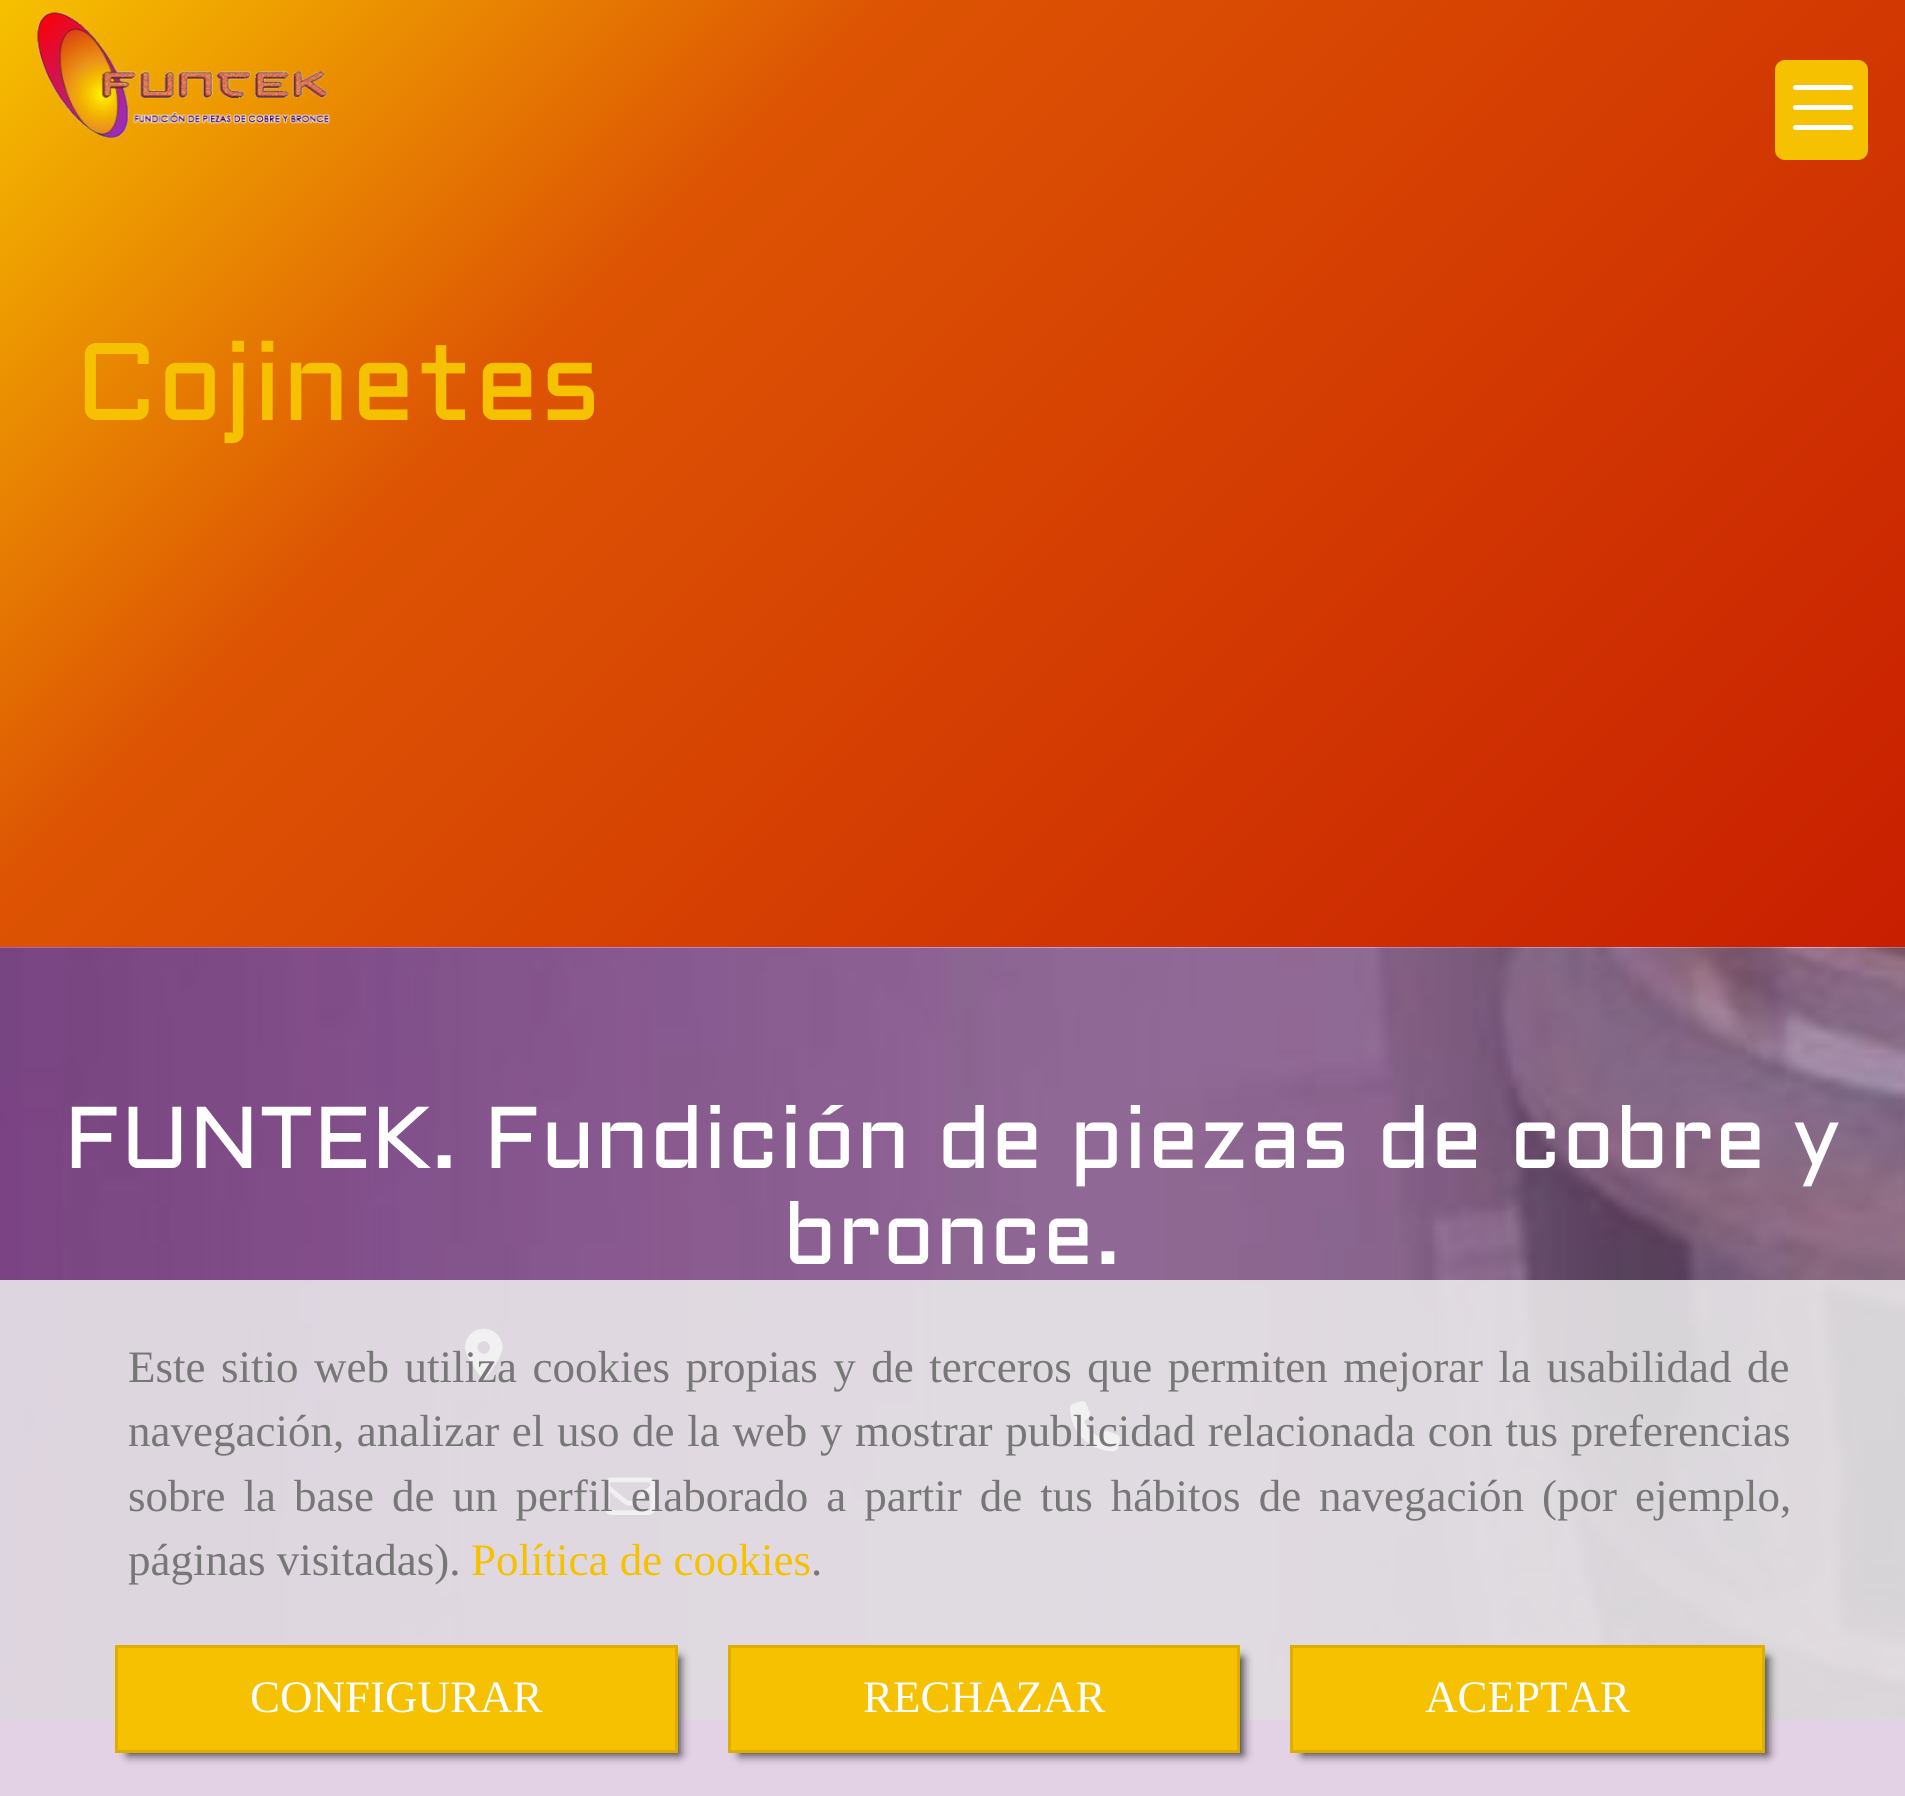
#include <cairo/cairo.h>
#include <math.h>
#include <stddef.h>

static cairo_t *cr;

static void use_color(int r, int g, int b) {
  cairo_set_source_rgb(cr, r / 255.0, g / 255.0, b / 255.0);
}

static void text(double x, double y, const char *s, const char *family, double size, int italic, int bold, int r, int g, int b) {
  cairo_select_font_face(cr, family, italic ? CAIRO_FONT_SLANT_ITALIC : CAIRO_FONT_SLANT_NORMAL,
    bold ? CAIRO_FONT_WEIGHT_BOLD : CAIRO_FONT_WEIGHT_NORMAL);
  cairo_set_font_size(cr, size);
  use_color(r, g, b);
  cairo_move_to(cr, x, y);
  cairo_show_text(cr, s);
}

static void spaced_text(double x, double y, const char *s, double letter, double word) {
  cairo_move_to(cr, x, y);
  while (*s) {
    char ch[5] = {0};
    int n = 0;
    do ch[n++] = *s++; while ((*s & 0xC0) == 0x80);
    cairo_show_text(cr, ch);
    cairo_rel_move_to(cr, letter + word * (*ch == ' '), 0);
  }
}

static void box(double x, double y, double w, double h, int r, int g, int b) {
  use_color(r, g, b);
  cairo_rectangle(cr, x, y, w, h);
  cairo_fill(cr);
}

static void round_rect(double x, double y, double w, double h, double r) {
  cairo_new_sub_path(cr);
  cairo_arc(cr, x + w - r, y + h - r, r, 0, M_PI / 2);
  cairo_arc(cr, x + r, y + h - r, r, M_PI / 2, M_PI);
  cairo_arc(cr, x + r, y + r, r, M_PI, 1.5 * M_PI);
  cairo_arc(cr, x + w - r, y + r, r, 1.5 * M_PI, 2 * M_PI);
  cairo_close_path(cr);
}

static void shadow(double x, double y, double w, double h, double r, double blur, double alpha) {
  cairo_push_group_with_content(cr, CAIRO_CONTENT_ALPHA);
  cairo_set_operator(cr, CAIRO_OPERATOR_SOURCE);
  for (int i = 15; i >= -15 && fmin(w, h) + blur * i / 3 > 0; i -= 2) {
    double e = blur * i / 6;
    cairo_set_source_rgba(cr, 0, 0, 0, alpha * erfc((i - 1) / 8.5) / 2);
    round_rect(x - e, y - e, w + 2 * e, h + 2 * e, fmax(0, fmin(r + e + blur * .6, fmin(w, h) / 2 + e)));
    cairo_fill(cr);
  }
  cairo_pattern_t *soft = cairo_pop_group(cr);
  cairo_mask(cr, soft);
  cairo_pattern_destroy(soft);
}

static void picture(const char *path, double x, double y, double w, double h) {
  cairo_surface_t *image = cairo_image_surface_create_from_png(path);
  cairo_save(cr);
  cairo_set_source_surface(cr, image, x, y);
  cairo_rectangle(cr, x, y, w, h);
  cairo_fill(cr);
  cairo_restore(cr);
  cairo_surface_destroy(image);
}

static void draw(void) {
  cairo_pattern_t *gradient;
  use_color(255, 255, 255);
  cairo_paint(cr);
  gradient = cairo_pattern_create_linear(-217, 217, 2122, 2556);
  cairo_pattern_add_color_stop_rgba(gradient, 0, 0.965, 0.757, 0, 1);
  cairo_pattern_add_color_stop_rgba(gradient, 0.19, 0.867, 0.329, 0.012, 1);
  cairo_pattern_add_color_stop_rgba(gradient, 0.85, 0.737, 0, 0, 1);
  cairo_set_source(cr, gradient);
  cairo_pattern_destroy(gradient);
  cairo_rectangle(cr, 0, 0, 1905, 947);
  cairo_fill(cr);
  picture("img_01.png", 37, 12, 293, 126);
  use_color(246, 193, 0);
  round_rect(1775, 60, 93, 100, 10);
  cairo_fill(cr);
  use_color(255, 255, 255);
  round_rect(1793, 105, 60, 5, 2.5);
  cairo_fill(cr);
  round_rect(1793, 85, 60, 5, 2.5);
  cairo_fill(cr);
  round_rect(1793, 125, 60, 5, 2.5);
  cairo_fill(cr);
  picture("img_02.png", 0, 947, 1905, 773);
  picture("img_03.png", 465, 1328, 38, 51);
  picture("img_04.png", 1070, 1401, 50, 51);
  picture("img_05.png", 605, 1477, 50, 38);
  box(0, 1720, 1905, 76, 159, 41, 177);
  cairo_set_source_rgba(cr, 0.933, 0.933, 0.933, 0.85);
  cairo_rectangle(cr, 0, 1280, 1905, 516);
  cairo_fill(cr);
  use_color(0, 0, 0);
  shadow(128, 1658, 552, 97, 0, 5, 0.75);
  use_color(246, 193, 0);
  cairo_rectangle(cr, 116.5, 1646.5, 560, 105);
  cairo_fill_preserve(cr);
  use_color(221, 173, 0);
  cairo_set_line_width(cr, 3);
  cairo_stroke(cr);
  use_color(0, 0, 0);
  shadow(740, 1658, 503, 97, 0, 5, 0.75);
  use_color(246, 193, 0);
  cairo_rectangle(cr, 729.5, 1646.5, 509, 105);
  cairo_fill_preserve(cr);
  use_color(221, 173, 0);
  cairo_stroke(cr);
  use_color(0, 0, 0);
  shadow(1303, 1658, 465, 97, 0, 5, 0.75);
  use_color(246, 193, 0);
  cairo_rectangle(cr, 1291.5, 1646.5, 472, 105);
  cairo_fill_preserve(cr);
  use_color(221, 173, 0);
  cairo_stroke(cr);
  text(75, 420, "Cojinetes", "Aldrich", 110, 0, 0, 246, 193, 0);
  text(64, 1168, "FUNTEK. Fundición de piezas de cobre y", "Aldrich", 87.5, 0, 0, 255, 255, 255);
  text(783, 1264, "bronce.", "Aldrich", 87.5, 0, 0, 255, 255, 255);
  cairo_select_font_face(cr, "Liberation Serif", CAIRO_FONT_SLANT_NORMAL, CAIRO_FONT_WEIGHT_NORMAL);
  cairo_set_font_size(cr, 45);
  use_color(119, 119, 119);
  spaced_text(128, 1382, "Este sitio web utiliza cookies propias y de terceros que permiten mejorar la usabilidad de", 0, 4.25);
  spaced_text(128, 1446, "navegación, analizar el uso de la web y mostrar publicidad relacionada con tus preferencias", 0, 1.4);
  spaced_text(128, 1511, "sobre la base de un perfil elaborado a partir de tus hábitos de navegación (por ejemplo,", 0, 6.75);
  text(128, 1575, "páginas visitadas).", "Liberation Serif", 45, 0, 0, 119, 119, 119);
  text(471, 1575, "Política de cookies", "Liberation Serif", 45, 0, 0, 246, 193, 0);
  text(811, 1575, ".", "Liberation Serif", 45, 0, 0, 119, 119, 119);
  text(250, 1712, "CONFIGURAR", "Liberation Serif", 45, 0, 0, 255, 255, 255);
  text(863, 1712, "RECHAZAR", "Liberation Serif", 45, 0, 0, 255, 255, 255);
  text(1425, 1712, "ACEPTAR", "Liberation Serif", 45, 0, 0, 255, 255, 255);
}

int main(void) {
  cairo_surface_t *surface = cairo_image_surface_create(CAIRO_FORMAT_RGB24, 1905, 1796);
  cr = cairo_create(surface);
  cairo_font_options_t *options = cairo_font_options_create();
  cairo_font_options_set_hint_metrics(options, CAIRO_HINT_METRICS_OFF);
  cairo_font_options_set_hint_style(options, CAIRO_HINT_STYLE_NONE);
  cairo_set_font_options(cr, options);
  cairo_set_miter_limit(cr, 4);
  draw();
  cairo_surface_write_to_png(surface, "out.png");
  cairo_font_options_destroy(options);
  cairo_destroy(cr);
  cairo_surface_destroy(surface);
  return 0;
}
